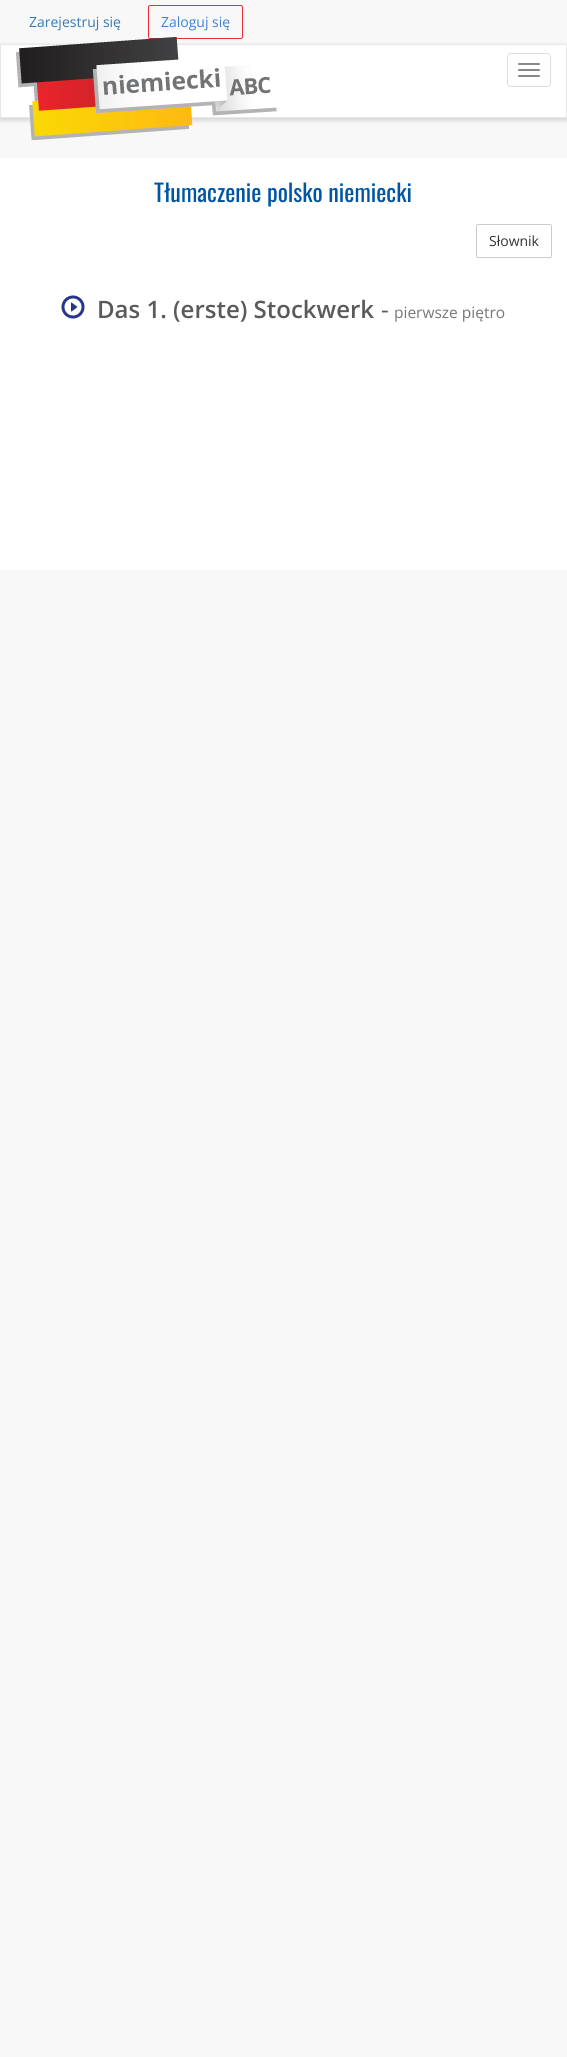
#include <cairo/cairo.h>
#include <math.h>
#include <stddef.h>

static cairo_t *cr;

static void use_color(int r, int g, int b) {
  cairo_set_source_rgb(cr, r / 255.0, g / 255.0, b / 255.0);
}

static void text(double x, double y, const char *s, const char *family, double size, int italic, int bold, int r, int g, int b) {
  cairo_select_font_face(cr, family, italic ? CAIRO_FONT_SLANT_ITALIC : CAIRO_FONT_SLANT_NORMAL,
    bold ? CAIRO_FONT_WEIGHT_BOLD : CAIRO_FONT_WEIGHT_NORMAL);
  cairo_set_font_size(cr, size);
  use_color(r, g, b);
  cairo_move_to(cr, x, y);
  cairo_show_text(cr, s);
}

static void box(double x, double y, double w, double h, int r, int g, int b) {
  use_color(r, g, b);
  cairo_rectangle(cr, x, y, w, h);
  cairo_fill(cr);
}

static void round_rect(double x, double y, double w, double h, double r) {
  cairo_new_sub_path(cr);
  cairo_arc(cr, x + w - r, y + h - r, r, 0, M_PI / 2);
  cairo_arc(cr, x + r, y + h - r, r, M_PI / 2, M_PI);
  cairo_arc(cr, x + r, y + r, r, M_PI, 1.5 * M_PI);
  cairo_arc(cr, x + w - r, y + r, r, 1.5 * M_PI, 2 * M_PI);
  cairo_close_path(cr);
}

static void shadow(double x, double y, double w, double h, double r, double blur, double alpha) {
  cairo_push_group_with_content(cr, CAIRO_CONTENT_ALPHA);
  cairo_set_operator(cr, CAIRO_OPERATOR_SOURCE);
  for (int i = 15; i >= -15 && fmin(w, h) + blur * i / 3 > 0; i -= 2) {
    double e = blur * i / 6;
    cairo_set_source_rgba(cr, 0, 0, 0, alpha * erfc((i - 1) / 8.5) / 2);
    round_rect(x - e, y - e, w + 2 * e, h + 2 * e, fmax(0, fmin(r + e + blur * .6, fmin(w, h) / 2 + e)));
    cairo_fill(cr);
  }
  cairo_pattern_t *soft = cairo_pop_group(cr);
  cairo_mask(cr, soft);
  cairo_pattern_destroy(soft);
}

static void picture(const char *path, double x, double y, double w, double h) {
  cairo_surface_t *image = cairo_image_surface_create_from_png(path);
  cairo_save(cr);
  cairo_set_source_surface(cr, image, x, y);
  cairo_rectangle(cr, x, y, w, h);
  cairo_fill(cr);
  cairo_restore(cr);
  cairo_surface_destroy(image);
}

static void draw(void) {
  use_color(248, 248, 248);
  cairo_paint(cr);
  round_rect(148.5, 5.5, 94, 33, 1.5);
  use_color(237, 44, 51);
  cairo_set_line_width(cr, 1);
  cairo_stroke(cr);
  use_color(0, 0, 0);
  shadow(0, 46, 567, 74, 0, 2.5, 0.17);
  use_color(255, 255, 255);
  cairo_rectangle(cr, 0.5, 44.5, 566, 73);
  cairo_fill_preserve(cr);
  use_color(231, 231, 231);
  cairo_stroke(cr);
  picture("img_01.png", 16, 37, 261, 103);
  round_rect(507.5, 53.5, 43, 33, 3.5);
  use_color(221, 221, 221);
  cairo_stroke(cr);
  use_color(136, 136, 136);
  round_rect(518, 63, 22, 2, 1);
  cairo_fill(cr);
  round_rect(518, 69, 22, 2, 1);
  cairo_fill(cr);
  round_rect(518, 75, 22, 2, 1);
  cairo_fill(cr);
  box(0, 158, 567, 412, 255, 255, 255);
  round_rect(476.5, 224.5, 75, 33, 1.5);
  use_color(204, 204, 204);
  cairo_stroke(cr);
  picture("img_02.png", 61, 295, 24, 24);
  text(29, 27, "Zarejestruj się", "Open Sans", 14, 0, 0, 51, 122, 183);
  text(161, 27, "Zaloguj się", "Open Sans", 14, 0, 0, 62, 130, 217);
  text(154, 202, "Tłumaczenie polsko niemiecki", "Oswald", 24, 0, 0, 0, 85, 164);
  text(489, 246, "Słownik", "Open Sans", 14, 0, 0, 51, 51, 51);
  text(97, 318, "Das 1. (erste) Stockwerk", "Open Sans SemiBold", 24, 0, 0, 90, 90, 90);
  text(381, 318, "-", "Open Sans", 24, 0, 0, 90, 90, 90);
  text(394, 318, "pierwsze piętro", "Open Sans", 15.5, 0, 0, 119, 119, 119);
}

int main(void) {
  cairo_surface_t *surface = cairo_image_surface_create(CAIRO_FORMAT_RGB24, 567, 2057);
  cr = cairo_create(surface);
  cairo_font_options_t *options = cairo_font_options_create();
  cairo_font_options_set_hint_metrics(options, CAIRO_HINT_METRICS_OFF);
  cairo_font_options_set_hint_style(options, CAIRO_HINT_STYLE_NONE);
  cairo_set_font_options(cr, options);
  cairo_set_miter_limit(cr, 4);
  draw();
  cairo_surface_write_to_png(surface, "out.png");
  cairo_font_options_destroy(options);
  cairo_destroy(cr);
  cairo_surface_destroy(surface);
  return 0;
}
